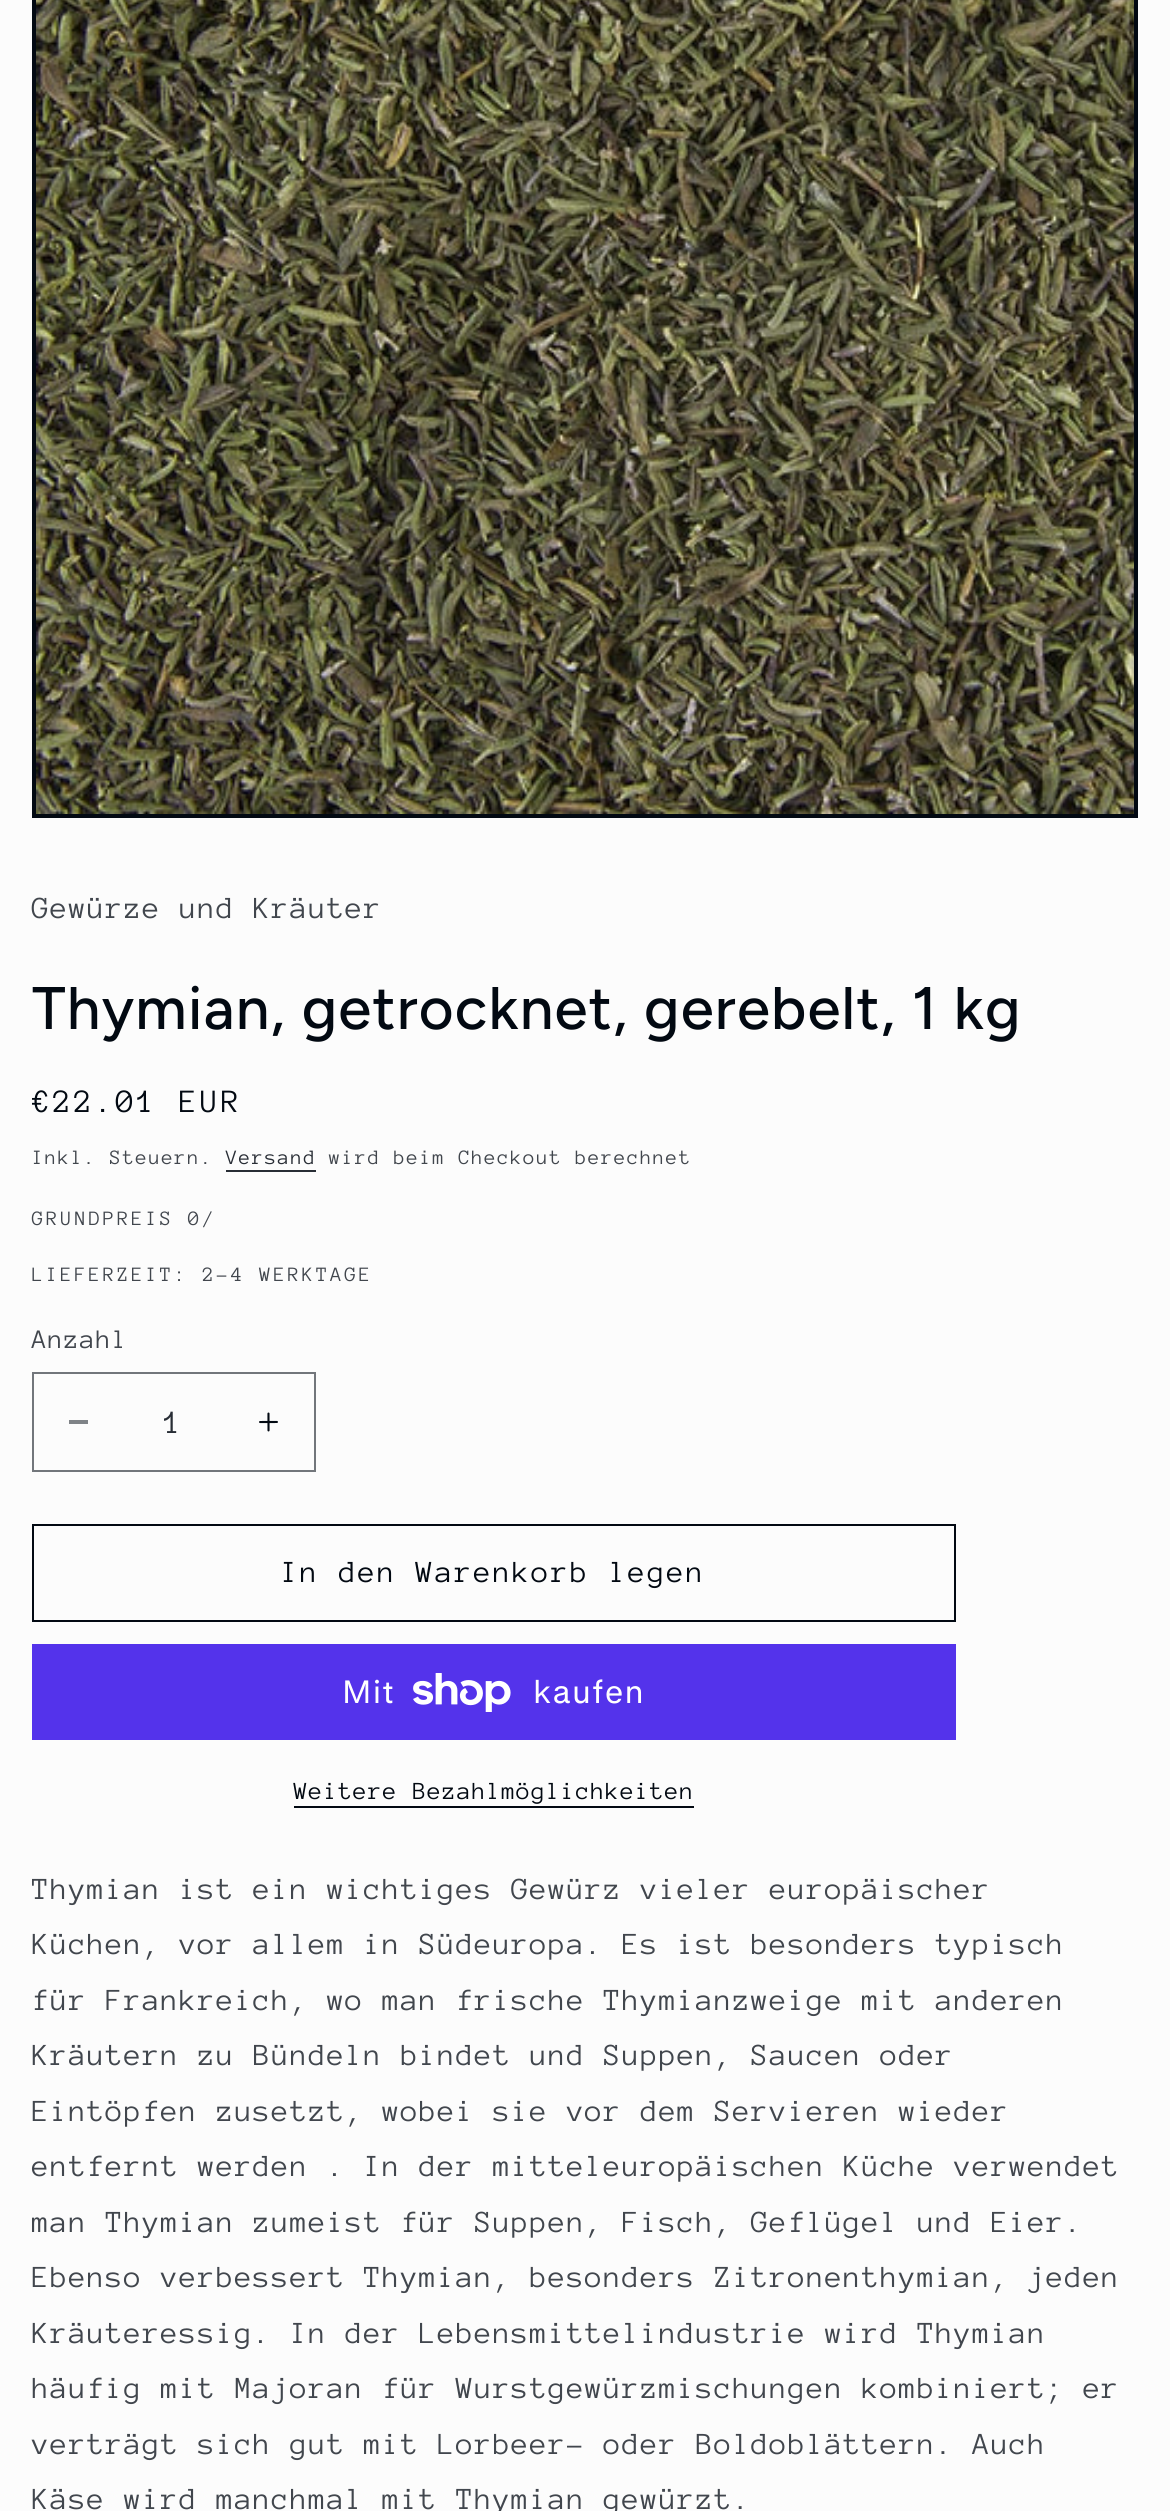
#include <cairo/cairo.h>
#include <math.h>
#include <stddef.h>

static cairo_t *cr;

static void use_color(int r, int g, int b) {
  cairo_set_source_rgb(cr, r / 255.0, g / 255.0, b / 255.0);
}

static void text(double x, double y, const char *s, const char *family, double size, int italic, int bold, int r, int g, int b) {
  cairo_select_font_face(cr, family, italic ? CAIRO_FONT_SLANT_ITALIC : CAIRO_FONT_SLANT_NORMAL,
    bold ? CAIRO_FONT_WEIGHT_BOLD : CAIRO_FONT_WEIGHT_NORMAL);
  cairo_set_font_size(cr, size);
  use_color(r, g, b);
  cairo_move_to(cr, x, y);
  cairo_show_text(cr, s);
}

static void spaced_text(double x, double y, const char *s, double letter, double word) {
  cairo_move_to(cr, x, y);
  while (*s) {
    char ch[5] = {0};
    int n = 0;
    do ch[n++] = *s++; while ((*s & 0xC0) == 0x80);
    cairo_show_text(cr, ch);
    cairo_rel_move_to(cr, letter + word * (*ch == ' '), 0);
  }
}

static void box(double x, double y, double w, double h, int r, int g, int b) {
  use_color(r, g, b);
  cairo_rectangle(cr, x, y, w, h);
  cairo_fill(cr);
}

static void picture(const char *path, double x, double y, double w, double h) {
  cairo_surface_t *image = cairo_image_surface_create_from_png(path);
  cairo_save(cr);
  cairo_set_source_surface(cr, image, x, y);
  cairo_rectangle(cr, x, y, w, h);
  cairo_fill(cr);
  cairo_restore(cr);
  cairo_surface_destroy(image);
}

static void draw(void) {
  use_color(252, 252, 252);
  cairo_paint(cr);
  cairo_rectangle(cr, 34, -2, 1102, 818);
  use_color(2, 9, 18);
  cairo_set_line_width(cr, 4);
  cairo_stroke(cr);
  picture("img_01.png", 36, 0, 1098, 814);
  box(226, 1170, 90, 2, 40, 45, 53);
  box(69, 1420, 19, 4, 127, 131, 135);
  picture("img_02.png", 259, 1412, 19, 20);
  cairo_rectangle(cr, 33, 1373, 282, 98);
  use_color(114, 118, 123);
  cairo_set_line_width(cr, 2);
  cairo_stroke(cr);
  cairo_rectangle(cr, 33, 1525, 922, 96);
  use_color(2, 9, 18);
  cairo_stroke(cr);
  box(32, 1644, 924, 96, 84, 51, 235);
  picture("img_03.png", 413, 1673, 98, 39);
  box(294, 1806, 400, 2, 2, 9, 18);
  cairo_select_font_face(cr, "Anonymous Pro", CAIRO_FONT_SLANT_NORMAL, CAIRO_FONT_WEIGHT_NORMAL);
  cairo_set_font_size(cr, 31.5);
  use_color(65, 70, 77);
  spaced_text(32, 918, "Gewürze und Kräuter", 1.25, 0);
  cairo_select_font_face(cr, "Figtree Medium", CAIRO_FONT_SLANT_NORMAL, CAIRO_FONT_WEIGHT_NORMAL);
  cairo_set_font_size(cr, 60);
  use_color(2, 9, 18);
  spaced_text(32, 1029, "Thymian, getrocknet, gerebelt, 1 kg", 1.2, 0);
  cairo_select_font_face(cr, "Anonymous Pro", CAIRO_FONT_SLANT_NORMAL, CAIRO_FONT_WEIGHT_NORMAL);
  cairo_set_font_size(cr, 33.5);
  spaced_text(32, 1112, "€22.01 EUR", 2.75, 0);
  cairo_set_font_size(cr, 21);
  use_color(65, 70, 77);
  spaced_text(32, 1164, "Inkl. Steuern.", 1.5, 0);
  use_color(40, 45, 53);
  spaced_text(226, 1164, "Versand", 1.5, 0);
  use_color(65, 70, 77);
  spaced_text(329, 1164, "wird beim Checkout berechnet", 1.5, 0);
  spaced_text(32, 1225, "GRUNDPREIS 0/", 2.75, 0);
  spaced_text(32, 1281, "LIEFERZEIT: 2-4 WERKTAGE", 2.75, 0);
  cairo_set_font_size(cr, 27.5);
  spaced_text(32, 1348, "Anzahl", 1, 0);
  text(164, 1433, "1", "Anonymous Pro", 33.5, 0, 0, 40, 45, 53);
  cairo_set_font_size(cr, 31.5);
  use_color(2, 9, 18);
  spaced_text(281, 1582, "In den Warenkorb legen", 2.1, 0);
  cairo_select_font_face(cr, "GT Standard", CAIRO_FONT_SLANT_NORMAL, CAIRO_FONT_WEIGHT_NORMAL);
  cairo_set_font_size(cr, 32);
  use_color(255, 255, 255);
  spaced_text(342, 1703, "Mit", 1.25, 0);
  spaced_text(533, 1703, "kaufen", 1.25, 0);
  cairo_select_font_face(cr, "Anonymous Pro", CAIRO_FONT_SLANT_NORMAL, CAIRO_FONT_WEIGHT_NORMAL);
  cairo_set_font_size(cr, 25.25);
  use_color(2, 9, 18);
  spaced_text(294, 1799, "Weitere Bezahlmöglichkeiten", 1.05, 0);
  cairo_set_font_size(cr, 31.5);
  use_color(65, 70, 77);
  spaced_text(32, 1899, "Thymian ist ein wichtiges Gewürz vieler europäischer", 1.25, 0);
  spaced_text(32, 1954, "Küchen, vor allem in Südeuropa. Es ist besonders typisch", 1.25, 0);
  spaced_text(32, 2010, "für Frankreich, wo man frische Thymianzweige mit anderen", 1.25, 0);
  spaced_text(32, 2065, "Kräutern zu Bündeln bindet und Suppen, Saucen oder", 1.25, 0);
  spaced_text(32, 2121, "Eintöpfen zusetzt, wobei sie vor dem Servieren wieder", 1.25, 0);
  spaced_text(32, 2176, "entfernt werden . In der mitteleuropäischen Küche verwendet", 1.25, 0);
  spaced_text(32, 2232, "man Thymian zumeist für Suppen, Fisch, Geflügel und Eier.", 1.25, 0);
  spaced_text(32, 2287, "Ebenso verbessert Thymian, besonders Zitronenthymian, jeden", 1.25, 0);
  spaced_text(32, 2343, "Kräuteressig. In der Lebensmittelindustrie wird Thymian", 1.25, 0);
  spaced_text(32, 2398, "häufig mit Majoran für Wurstgewürzmischungen kombiniert; er", 1.25, 0);
  spaced_text(32, 2454, "verträgt sich gut mit Lorbeer- oder Boldoblättern. Auch", 1.25, 0);
  spaced_text(32, 2509, "Käse wird manchmal mit Thymian gewürzt.", 1.25, 0);
}

int main(void) {
  cairo_surface_t *surface = cairo_image_surface_create(CAIRO_FORMAT_RGB24, 1170, 2511);
  cr = cairo_create(surface);
  cairo_font_options_t *options = cairo_font_options_create();
  cairo_font_options_set_hint_metrics(options, CAIRO_HINT_METRICS_OFF);
  cairo_font_options_set_hint_style(options, CAIRO_HINT_STYLE_NONE);
  cairo_set_font_options(cr, options);
  cairo_set_miter_limit(cr, 4);
  draw();
  cairo_surface_write_to_png(surface, "out.png");
  cairo_font_options_destroy(options);
  cairo_destroy(cr);
  cairo_surface_destroy(surface);
  return 0;
}
